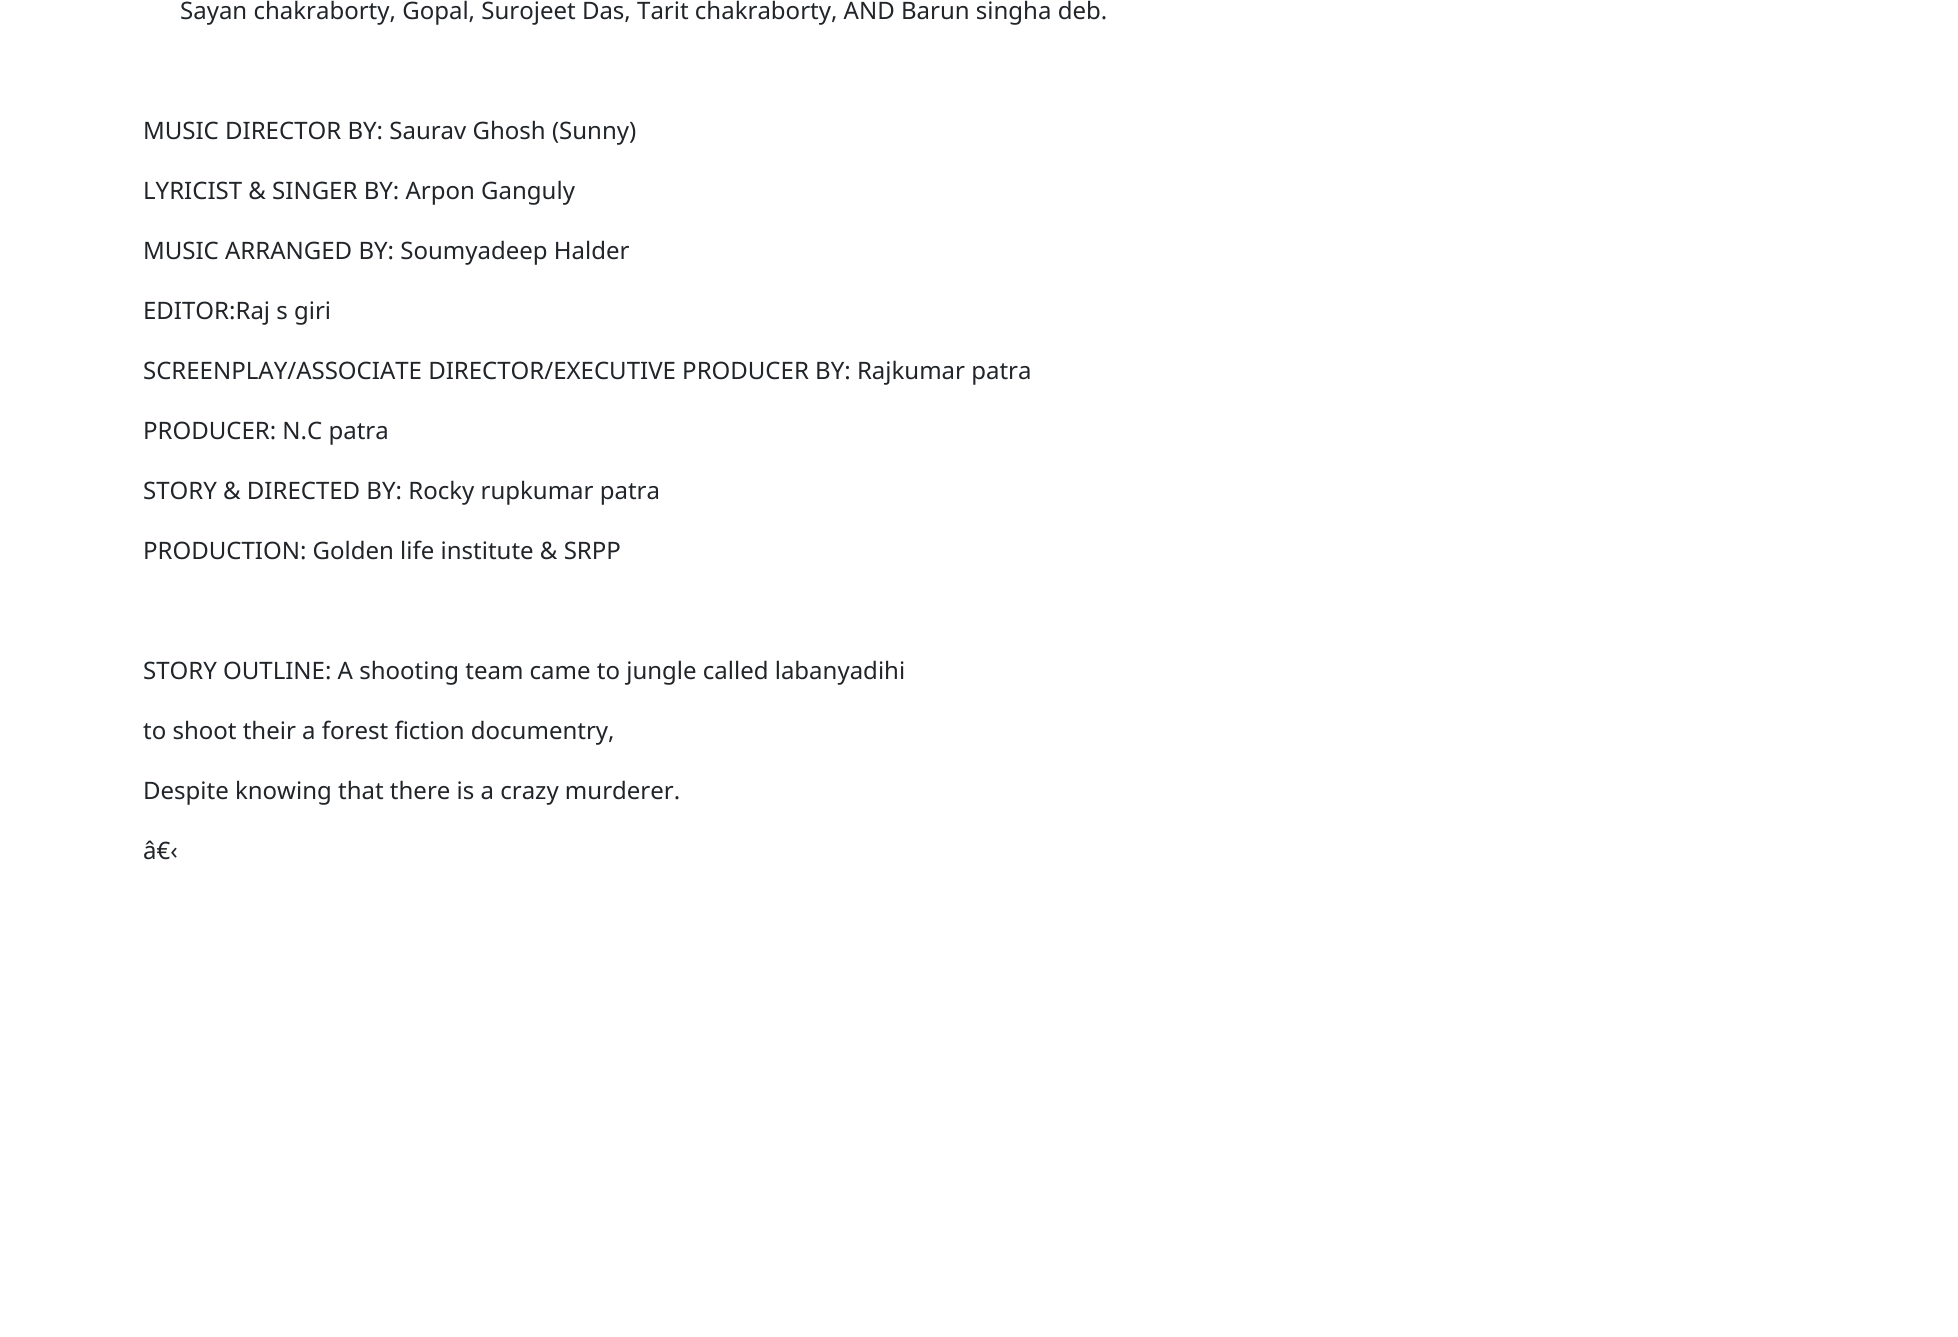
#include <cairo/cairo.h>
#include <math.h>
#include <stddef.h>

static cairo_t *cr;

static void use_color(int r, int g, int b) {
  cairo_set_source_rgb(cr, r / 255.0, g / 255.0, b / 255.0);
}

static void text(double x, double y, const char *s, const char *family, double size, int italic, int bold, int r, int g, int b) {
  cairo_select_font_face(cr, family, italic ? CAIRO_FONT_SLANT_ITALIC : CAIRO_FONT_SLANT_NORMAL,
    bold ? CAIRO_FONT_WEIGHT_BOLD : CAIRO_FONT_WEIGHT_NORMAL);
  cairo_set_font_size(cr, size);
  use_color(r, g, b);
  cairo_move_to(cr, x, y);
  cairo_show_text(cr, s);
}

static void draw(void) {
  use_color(255, 255, 255);
  cairo_paint(cr);
  text(180, 19, "Sayan chakraborty, Gopal, Surojeet Das, Tarit chakraborty, AND Barun singha deb.", "Noto Sans", 24, 0, 0, 33, 37, 41);
  text(143, 139, "MUSIC DIRECTOR BY: Saurav Ghosh (Sunny)", "Noto Sans", 24, 0, 0, 33, 37, 41);
  text(143, 199, "LYRICIST & SINGER BY: Arpon Ganguly", "Noto Sans", 24, 0, 0, 33, 37, 41);
  text(143, 259, "MUSIC ARRANGED BY: Soumyadeep Halder", "Noto Sans", 24, 0, 0, 33, 37, 41);
  text(143, 319, "EDITOR:Raj s giri", "Noto Sans", 24, 0, 0, 33, 37, 41);
  text(143, 379, "SCREENPLAY/ASSOCIATE DIRECTOR/EXECUTIVE PRODUCER BY: Rajkumar patra", "Noto Sans", 24, 0, 0, 33, 37, 41);
  text(143, 439, "PRODUCER: N.C patra", "Noto Sans", 24, 0, 0, 33, 37, 41);
  text(143, 499, "STORY & DIRECTED BY: Rocky rupkumar patra", "Noto Sans", 24, 0, 0, 33, 37, 41);
  text(143, 559, "PRODUCTION: Golden life institute & SRPP", "Noto Sans", 24, 0, 0, 33, 37, 41);
  text(143, 679, "STORY OUTLINE: A shooting team came to jungle called labanyadihi", "Noto Sans", 24, 0, 0, 33, 37, 41);
  text(143, 739, "to shoot their a forest fiction documentry,", "Noto Sans", 24, 0, 0, 33, 37, 41);
  text(143, 799, "Despite knowing that there is a crazy murderer.", "Noto Sans", 24, 0, 0, 33, 37, 41);
  text(143, 859, "â€‹", "Noto Sans", 24, 0, 0, 33, 37, 41);
}

int main(void) {
  cairo_surface_t *surface = cairo_image_surface_create(CAIRO_FORMAT_RGB24, 1958, 1337);
  cr = cairo_create(surface);
  cairo_font_options_t *options = cairo_font_options_create();
  cairo_font_options_set_hint_metrics(options, CAIRO_HINT_METRICS_OFF);
  cairo_font_options_set_hint_style(options, CAIRO_HINT_STYLE_NONE);
  cairo_set_font_options(cr, options);
  cairo_set_miter_limit(cr, 4);
  draw();
  cairo_surface_write_to_png(surface, "out.png");
  cairo_font_options_destroy(options);
  cairo_destroy(cr);
  cairo_surface_destroy(surface);
  return 0;
}
